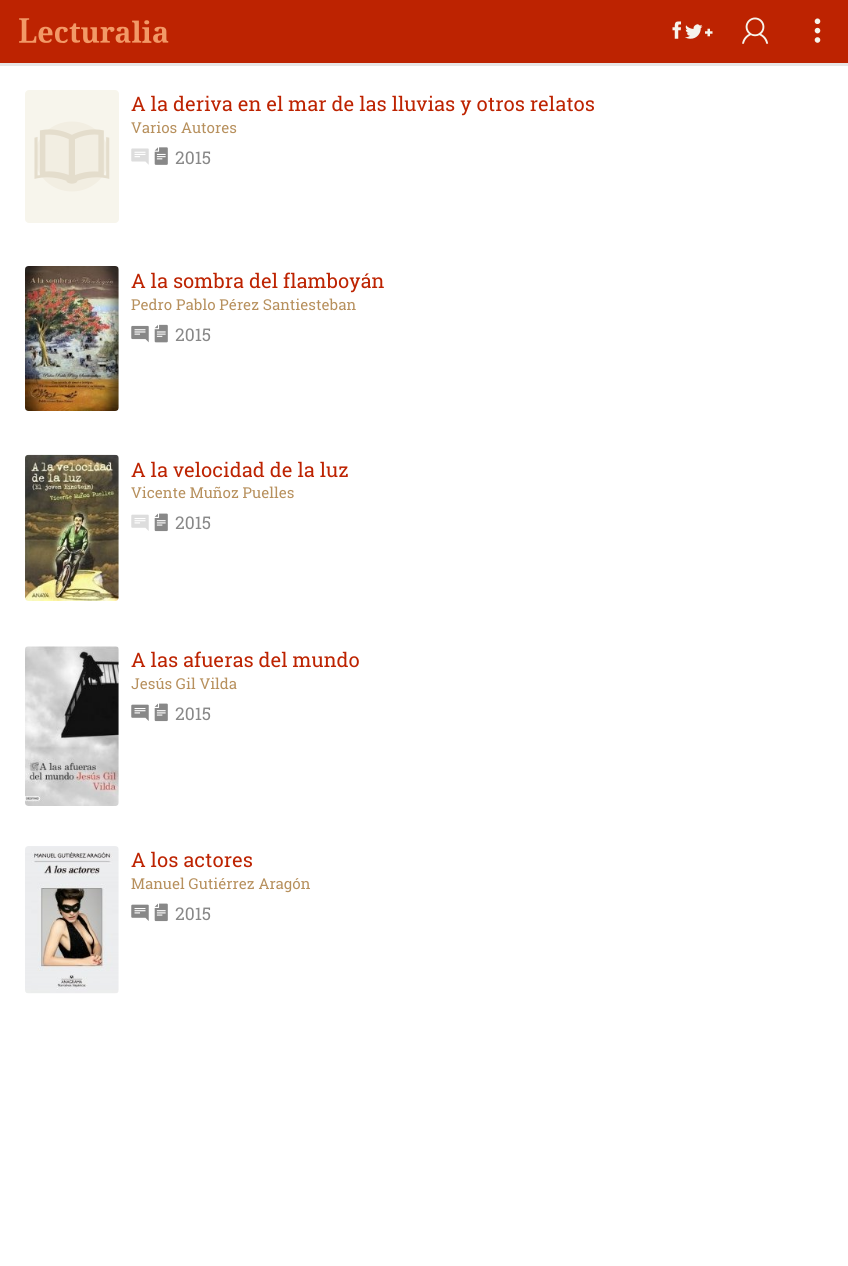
#include <cairo/cairo.h>
#include <math.h>
#include <stddef.h>

static cairo_t *cr;

static void use_color(int r, int g, int b) {
  cairo_set_source_rgb(cr, r / 255.0, g / 255.0, b / 255.0);
}

static void text(double x, double y, const char *s, const char *family, double size, int italic, int bold, int r, int g, int b) {
  cairo_select_font_face(cr, family, italic ? CAIRO_FONT_SLANT_ITALIC : CAIRO_FONT_SLANT_NORMAL,
    bold ? CAIRO_FONT_WEIGHT_BOLD : CAIRO_FONT_WEIGHT_NORMAL);
  cairo_set_font_size(cr, size);
  use_color(r, g, b);
  cairo_move_to(cr, x, y);
  cairo_show_text(cr, s);
}

static void box(double x, double y, double w, double h, int r, int g, int b) {
  use_color(r, g, b);
  cairo_rectangle(cr, x, y, w, h);
  cairo_fill(cr);
}

static void picture(const char *path, double x, double y, double w, double h) {
  cairo_surface_t *image = cairo_image_surface_create_from_png(path);
  cairo_save(cr);
  cairo_set_source_surface(cr, image, x, y);
  cairo_rectangle(cr, x, y, w, h);
  cairo_fill(cr);
  cairo_restore(cr);
  cairo_surface_destroy(image);
}

static void draw(void) {
  use_color(255, 255, 255);
  cairo_paint(cr);
  use_color(230, 230, 230);
  cairo_new_path(cr);
  cairo_move_to(cr, 0, 62);
  cairo_line_to(cr, 0, 66);
  cairo_line_to(cr, 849, 66);
  cairo_line_to(cr, 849, 4);
  cairo_line_to(cr, 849, 62);
  cairo_close_path(cr);
  cairo_fill(cr);
  box(0, 0, 848, 63, 189, 35, 1);
  picture("img_01.png", 19, 18, 150, 26);
  picture("img_02.png", 672, 21, 41, 18);
  picture("img_03.png", 742, 17, 27, 27);
  picture("img_04.png", 814, 18, 7, 25);
  picture("img_05.png", 25, 90, 94, 133);
  picture("img_06.png", 131, 148, 18, 17);
  picture("img_07.png", 154, 147, 14, 18);
  picture("img_08.png", 25, 266, 94, 145);
  picture("img_09.png", 131, 325, 18, 18);
  picture("img_10.png", 154, 324, 14, 19);
  picture("img_11.png", 25, 454, 94, 147);
  picture("img_12.png", 131, 514, 18, 17);
  picture("img_13.png", 154, 513, 14, 19);
  picture("img_14.png", 25, 646, 94, 160);
  picture("img_15.png", 131, 704, 18, 17);
  picture("img_13.png", 154, 703, 14, 19);
  picture("img_16.png", 25, 846, 94, 148);
  picture("img_15.png", 131, 904, 18, 17);
  picture("img_13.png", 154, 903, 14, 19);
  text(131, 111, "A la deriva en el mar de las lluvias y otros relatos", "Roboto Slab", 20, 0, 0, 189, 35, 1);
  text(131, 133, "Varios Autores", "Roboto Slab", 15, 0, 0, 183, 144, 93);
  text(175, 164, "2015", "Roboto Slab", 17.5, 0, 0, 136, 136, 136);
  text(131, 288, "A la sombra del flamboyán", "Roboto Slab", 20, 0, 0, 189, 35, 1);
  text(131, 310, "Pedro Pablo Pérez Santiesteban", "Roboto Slab", 15, 0, 0, 183, 144, 93);
  text(175, 341, "2015", "Roboto Slab", 17.5, 0, 0, 136, 136, 136);
  text(131, 477, "A la velocidad de la luz", "Roboto Slab", 20, 0, 0, 189, 35, 1);
  text(131, 498, "Vicente Muñoz Puelles", "Roboto Slab", 15, 0, 0, 183, 144, 93);
  text(175, 529, "2015", "Roboto Slab", 17.5, 0, 0, 136, 136, 136);
  text(131, 667, "A las afueras del mundo", "Roboto Slab", 20, 0, 0, 189, 35, 1);
  text(131, 689, "Jesús Gil Vilda", "Roboto Slab", 15, 0, 0, 183, 144, 93);
  text(175, 720, "2015", "Roboto Slab", 17.5, 0, 0, 136, 136, 136);
  text(131, 867, "A los actores", "Roboto Slab", 20, 0, 0, 189, 35, 1);
  text(131, 889, "Manuel Gutiérrez Aragón", "Roboto Slab", 15, 0, 0, 183, 144, 93);
  text(175, 920, "2015", "Roboto Slab", 17.5, 0, 0, 136, 136, 136);
}

int main(void) {
  cairo_surface_t *surface = cairo_image_surface_create(CAIRO_FORMAT_RGB24, 848, 1266);
  cr = cairo_create(surface);
  cairo_font_options_t *options = cairo_font_options_create();
  cairo_font_options_set_hint_metrics(options, CAIRO_HINT_METRICS_OFF);
  cairo_font_options_set_hint_style(options, CAIRO_HINT_STYLE_NONE);
  cairo_set_font_options(cr, options);
  cairo_set_miter_limit(cr, 4);
  draw();
  cairo_surface_write_to_png(surface, "out.png");
  cairo_font_options_destroy(options);
  cairo_destroy(cr);
  cairo_surface_destroy(surface);
  return 0;
}
